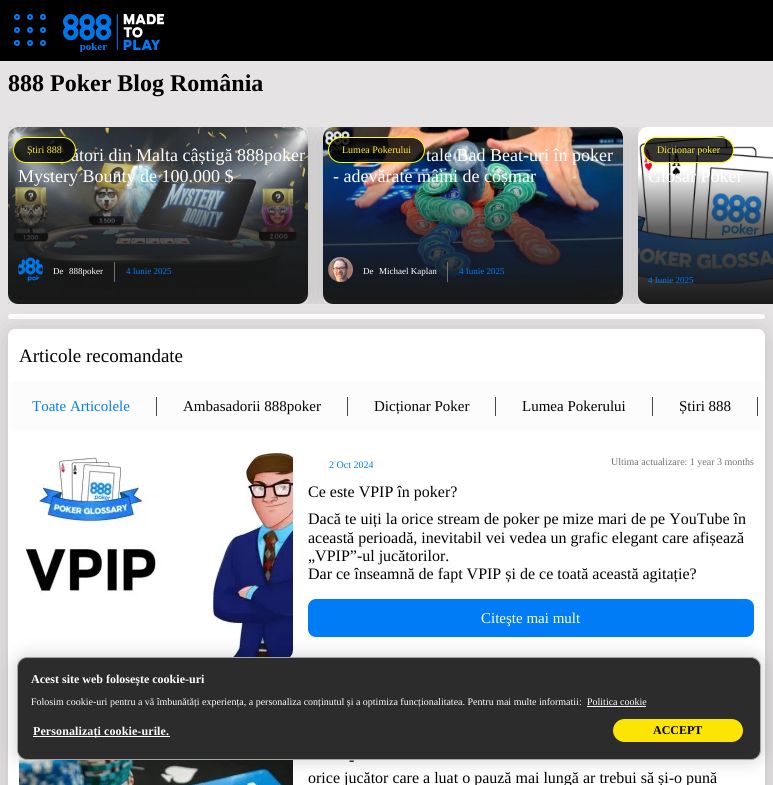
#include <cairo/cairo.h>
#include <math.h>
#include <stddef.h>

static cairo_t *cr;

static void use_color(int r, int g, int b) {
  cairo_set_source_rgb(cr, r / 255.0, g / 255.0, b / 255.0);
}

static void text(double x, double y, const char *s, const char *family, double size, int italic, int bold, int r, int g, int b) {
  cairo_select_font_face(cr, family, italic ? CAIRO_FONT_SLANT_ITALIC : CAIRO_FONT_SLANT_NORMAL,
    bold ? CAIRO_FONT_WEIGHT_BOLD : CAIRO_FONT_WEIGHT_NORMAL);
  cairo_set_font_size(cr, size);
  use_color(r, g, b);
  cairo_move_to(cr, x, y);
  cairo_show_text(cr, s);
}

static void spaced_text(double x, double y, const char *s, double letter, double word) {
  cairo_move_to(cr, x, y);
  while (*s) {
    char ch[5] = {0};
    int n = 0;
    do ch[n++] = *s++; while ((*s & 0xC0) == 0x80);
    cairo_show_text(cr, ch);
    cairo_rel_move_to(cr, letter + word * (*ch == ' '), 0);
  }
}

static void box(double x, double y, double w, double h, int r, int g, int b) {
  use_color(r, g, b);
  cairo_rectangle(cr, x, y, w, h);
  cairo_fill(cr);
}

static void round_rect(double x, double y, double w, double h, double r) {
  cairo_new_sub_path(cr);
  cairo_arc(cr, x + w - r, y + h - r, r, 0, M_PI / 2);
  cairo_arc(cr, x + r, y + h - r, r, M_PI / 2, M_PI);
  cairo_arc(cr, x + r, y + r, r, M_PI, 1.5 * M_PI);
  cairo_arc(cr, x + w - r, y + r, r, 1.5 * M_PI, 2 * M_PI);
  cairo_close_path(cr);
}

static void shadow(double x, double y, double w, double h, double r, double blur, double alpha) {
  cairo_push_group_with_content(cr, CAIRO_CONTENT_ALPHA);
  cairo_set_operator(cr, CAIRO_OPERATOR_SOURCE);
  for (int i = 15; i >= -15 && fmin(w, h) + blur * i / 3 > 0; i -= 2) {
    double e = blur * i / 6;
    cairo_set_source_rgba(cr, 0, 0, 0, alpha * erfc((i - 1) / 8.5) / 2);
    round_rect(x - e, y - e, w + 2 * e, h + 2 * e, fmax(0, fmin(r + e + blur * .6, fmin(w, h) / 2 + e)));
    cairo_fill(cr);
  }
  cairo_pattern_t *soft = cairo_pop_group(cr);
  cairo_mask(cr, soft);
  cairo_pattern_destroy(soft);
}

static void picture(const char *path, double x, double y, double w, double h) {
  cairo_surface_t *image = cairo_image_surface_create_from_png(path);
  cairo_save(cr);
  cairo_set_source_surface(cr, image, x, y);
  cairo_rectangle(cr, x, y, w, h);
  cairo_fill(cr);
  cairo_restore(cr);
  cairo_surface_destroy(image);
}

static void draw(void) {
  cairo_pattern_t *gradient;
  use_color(229, 227, 227);
  cairo_paint(cr);
  box(0, 0, 773, 61, 0, 0, 0);
  use_color(0, 124, 247);
  cairo_arc(cr, 17, 17, 3, 0, 2 * M_PI);
  cairo_fill(cr);
  use_color(0, 0, 0);
  cairo_arc(cr, 17, 17, 1, 0, 2 * M_PI);
  cairo_fill(cr);
  use_color(0, 124, 247);
  cairo_arc(cr, 30, 17, 3, 0, 2 * M_PI);
  cairo_fill(cr);
  use_color(0, 0, 0);
  cairo_arc(cr, 30, 17, 1, 0, 2 * M_PI);
  cairo_fill(cr);
  use_color(0, 124, 247);
  cairo_arc(cr, 43, 17, 3, 0, 2 * M_PI);
  cairo_fill(cr);
  use_color(0, 0, 0);
  cairo_arc(cr, 43, 17, 1, 0, 2 * M_PI);
  cairo_fill(cr);
  use_color(0, 124, 247);
  cairo_arc(cr, 17, 30, 3, 0, 2 * M_PI);
  cairo_fill(cr);
  use_color(0, 0, 0);
  cairo_arc(cr, 17, 30, 1, 0, 2 * M_PI);
  cairo_fill(cr);
  use_color(0, 124, 247);
  cairo_arc(cr, 30, 30, 3, 0, 2 * M_PI);
  cairo_fill(cr);
  use_color(0, 0, 0);
  cairo_arc(cr, 30, 30, 1, 0, 2 * M_PI);
  cairo_fill(cr);
  use_color(0, 124, 247);
  cairo_arc(cr, 43, 30, 3, 0, 2 * M_PI);
  cairo_fill(cr);
  use_color(0, 0, 0);
  cairo_arc(cr, 43, 30, 1, 0, 2 * M_PI);
  cairo_fill(cr);
  use_color(0, 124, 247);
  cairo_arc(cr, 17, 43, 3, 0, 2 * M_PI);
  cairo_fill(cr);
  use_color(0, 0, 0);
  cairo_arc(cr, 17, 43, 1, 0, 2 * M_PI);
  cairo_fill(cr);
  use_color(0, 124, 247);
  cairo_arc(cr, 30, 43, 3, 0, 2 * M_PI);
  cairo_fill(cr);
  use_color(0, 0, 0);
  cairo_arc(cr, 30, 43, 1, 0, 2 * M_PI);
  cairo_fill(cr);
  use_color(0, 124, 247);
  cairo_arc(cr, 43, 43, 3, 0, 2 * M_PI);
  cairo_fill(cr);
  use_color(0, 0, 0);
  cairo_arc(cr, 43, 43, 1, 0, 2 * M_PI);
  cairo_fill(cr);
  picture("img_01.png", 63, 14, 101, 38);
  use_color(255, 255, 255);
  round_rect(8, 314, 757, 5, 2.5);
  cairo_fill(cr);
  use_color(0, 0, 0);
  shadow(8, 332, 757, 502, 7, 14, 0.16);
  use_color(240, 240, 240);
  round_rect(8, 127, 300, 177, 5);
  cairo_fill(cr);
  round_rect(323, 127, 300, 177, 5);
  cairo_fill(cr);
  use_color(255, 255, 255);
  round_rect(8, 329, 757, 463, 7);
  cairo_fill(cr);
  cairo_save(cr);
  cairo_rectangle(cr, 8, 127, 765, 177);
  cairo_clip(cr);
  cairo_set_fill_rule(cr, CAIRO_FILL_RULE_EVEN_ODD);
  cairo_new_path(cr);
  cairo_move_to(cr, 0, 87);
  cairo_line_to(cr, 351, 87);
  cairo_line_to(cr, 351, 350);
  cairo_line_to(cr, 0, 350);
  cairo_close_path(cr);
  cairo_move_to(cr, 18, 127);
  cairo_line_to(cr, 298, 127);
  cairo_curve_to(cr, 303.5, 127, 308, 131.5, 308, 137);
  cairo_line_to(cr, 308, 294);
  cairo_curve_to(cr, 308, 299.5, 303.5, 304, 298, 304);
  cairo_line_to(cr, 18, 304);
  cairo_curve_to(cr, 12.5, 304, 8, 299.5, 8, 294);
  cairo_line_to(cr, 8, 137);
  cairo_curve_to(cr, 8, 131.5, 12.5, 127, 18, 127);
  cairo_close_path(cr);
  cairo_clip(cr);
  use_color(0, 0, 0);
  shadow(8, 130, 300, 177, 10, 14, 0.16);
  cairo_restore(cr);
  picture("img_02.png", 8, 127, 300, 173);
  gradient = cairo_pattern_create_linear(158, 304, 158, 170);
  cairo_pattern_add_color_stop_rgba(gradient, 0, 0.094, 0.094, 0.094, 1);
  cairo_pattern_add_color_stop_rgba(gradient, 0.57, 0.094, 0.094, 0.094, 0.69);
  cairo_pattern_add_color_stop_rgba(gradient, 1, 0.094, 0.094, 0.094, 0);
  cairo_set_source(cr, gradient);
  cairo_pattern_destroy(gradient);
  round_rect(8, 170, 300, 134, 10);
  cairo_fill(cr);
  picture("img_03.png", 18, 257, 25, 25);
  box(114, 262, 1, 20, 112, 112, 112);
  use_color(240, 240, 240);
  cairo_new_path(cr);
  cairo_move_to(cr, 643, 127);
  cairo_line_to(cr, 773, 127);
  cairo_line_to(cr, 773, 304);
  cairo_line_to(cr, 643, 304);
  cairo_curve_to(cr, 640, 304, 638, 302, 638, 299);
  cairo_line_to(cr, 638, 132);
  cairo_curve_to(cr, 638, 129, 640, 127, 643, 127);
  cairo_close_path(cr);
  cairo_fill(cr);
  cairo_save(cr);
  cairo_rectangle(cr, 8, 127, 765, 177);
  cairo_clip(cr);
  cairo_set_fill_rule(cr, CAIRO_FILL_RULE_EVEN_ODD);
  cairo_new_path(cr);
  cairo_move_to(cr, 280, 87);
  cairo_line_to(cr, 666, 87);
  cairo_line_to(cr, 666, 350);
  cairo_line_to(cr, 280, 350);
  cairo_close_path(cr);
  cairo_move_to(cr, 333, 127);
  cairo_line_to(cr, 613, 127);
  cairo_curve_to(cr, 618.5, 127, 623, 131.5, 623, 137);
  cairo_line_to(cr, 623, 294);
  cairo_curve_to(cr, 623, 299.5, 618.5, 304, 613, 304);
  cairo_line_to(cr, 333, 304);
  cairo_curve_to(cr, 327.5, 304, 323, 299.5, 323, 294);
  cairo_line_to(cr, 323, 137);
  cairo_curve_to(cr, 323, 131.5, 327.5, 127, 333, 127);
  cairo_close_path(cr);
  cairo_clip(cr);
  use_color(0, 0, 0);
  shadow(323, 130, 300, 177, 10, 14, 0.16);
  cairo_restore(cr);
  picture("img_04.png", 323, 127, 300, 173);
  gradient = cairo_pattern_create_linear(473, 304, 473, 170);
  cairo_pattern_add_color_stop_rgba(gradient, 0, 0.094, 0.094, 0.094, 1);
  cairo_pattern_add_color_stop_rgba(gradient, 0.57, 0.094, 0.094, 0.094, 0.69);
  cairo_pattern_add_color_stop_rgba(gradient, 1, 0.094, 0.094, 0.094, 0);
  cairo_set_source(cr, gradient);
  cairo_pattern_destroy(gradient);
  round_rect(323, 170, 300, 134, 10);
  cairo_fill(cr);
  cairo_set_source_rgba(cr, 0, 0, 0, 0.8);
  round_rect(328.5, 137.5, 96, 25, 12.5);
  cairo_fill_preserve(cr);
  use_color(255, 255, 0);
  cairo_set_line_width(cr, 1);
  cairo_stroke(cr);
  picture("img_05.png", 328, 257, 25, 25);
  box(447, 262, 1, 20, 112, 112, 112);
  cairo_save(cr);
  cairo_rectangle(cr, 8, 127, 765, 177);
  cairo_clip(cr);
  cairo_set_fill_rule(cr, CAIRO_FILL_RULE_EVEN_ODD);
  cairo_new_path(cr);
  cairo_move_to(cr, 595, 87);
  cairo_line_to(cr, 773, 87);
  cairo_line_to(cr, 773, 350);
  cairo_line_to(cr, 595, 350);
  cairo_close_path(cr);
  cairo_move_to(cr, 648, 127);
  cairo_line_to(cr, 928, 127);
  cairo_curve_to(cr, 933.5, 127, 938, 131.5, 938, 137);
  cairo_line_to(cr, 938, 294);
  cairo_curve_to(cr, 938, 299.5, 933.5, 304, 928, 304);
  cairo_line_to(cr, 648, 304);
  cairo_curve_to(cr, 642.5, 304, 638, 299.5, 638, 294);
  cairo_line_to(cr, 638, 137);
  cairo_curve_to(cr, 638, 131.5, 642.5, 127, 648, 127);
  cairo_close_path(cr);
  cairo_clip(cr);
  use_color(0, 0, 0);
  shadow(638, 130, 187, 177, 10, 14, 0.16);
  cairo_restore(cr);
  picture("img_06.png", 638, 127, 135, 173);
  gradient = cairo_pattern_create_linear(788, 304, 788, 170);
  cairo_pattern_add_color_stop_rgba(gradient, 0, 0.094, 0.094, 0.094, 1);
  cairo_pattern_add_color_stop_rgba(gradient, 0.57, 0.094, 0.094, 0.094, 0.69);
  cairo_pattern_add_color_stop_rgba(gradient, 1, 0.094, 0.094, 0.094, 0);
  cairo_set_source(cr, gradient);
  cairo_pattern_destroy(gradient);
  cairo_new_path(cr);
  cairo_move_to(cr, 648, 170);
  cairo_line_to(cr, 773, 170);
  cairo_line_to(cr, 773, 304);
  cairo_line_to(cr, 648, 304);
  cairo_curve_to(cr, 642.5, 304, 638, 299.5, 638, 294);
  cairo_line_to(cr, 638, 180);
  cairo_curve_to(cr, 638, 174.5, 642.5, 170, 648, 170);
  cairo_close_path(cr);
  cairo_fill(cr);
  cairo_set_source_rgba(cr, 0, 0, 0, 0.8);
  round_rect(643.5, 137.5, 90, 25, 12.5);
  cairo_fill_preserve(cr);
  use_color(255, 255, 0);
  cairo_stroke(cr);
  box(11, 382, 751, 49, 252, 252, 252);
  box(156, 397, 1, 19, 71, 71, 71);
  box(347, 397, 1, 19, 71, 71, 71);
  box(495, 397, 1, 19, 71, 71, 71);
  box(652, 397, 1, 19, 71, 71, 71);
  box(757, 397, 1, 19, 71, 71, 71);
  picture("img_07.png", 23, 452, 270, 206);
  use_color(0, 124, 247);
  round_rect(308, 599, 446, 38, 8);
  cairo_fill(cr);
  picture("img_08.png", 19, 756, 274, 29);
  use_color(0, 0, 0);
  shadow(17, 657, 744, 103, 10, 9, 0.2);
  use_color(44, 44, 44);
  round_rect(17.5, 657.5, 743, 102, 9.5);
  cairo_fill_preserve(cr);
  use_color(165, 165, 165);
  cairo_stroke(cr);
  box(587, 706, 59, 1, 255, 255, 255);
  box(33, 736, 137, 1, 255, 255, 255);
  use_color(252, 228, 3);
  round_rect(614, 720, 128, 21, 10.5);
  cairo_fill_preserve(cr);
  cairo_set_line_width(cr, 2);
  cairo_stroke(cr);
  text(8, 91, "888 Poker Blog România", "Liberation Serif", 24, 0, 1, 0, 0, 0);
  text(71, 161, "ători din Malta câștigă 888poker", "Liberation Serif", 18, 0, 0, 255, 255, 255);
  cairo_set_source_rgba(cr, 0, 0, 0, 0.8);
  round_rect(13.5, 137.5, 62, 25, 12.5);
  cairo_fill_preserve(cr);
  use_color(255, 255, 0);
  cairo_set_line_width(cr, 1);
  cairo_stroke(cr);
  text(27, 153, "Știri 888", "Liberation Serif", 10, 0, 0, 254, 233, 44);
  text(18, 182, "Mystery Bounty de 100.000 $", "Liberation Serif", 18, 0, 0, 255, 255, 255);
  text(53, 274, "De", "Liberation Serif", 9, 0, 0, 255, 255, 255);
  text(69, 274, "888poker", "Liberation Serif", 9, 0, 0, 255, 255, 255);
  text(126, 274, "4 Iunie 2025", "Liberation Serif", 9, 0, 0, 0, 124, 247);
  text(342, 153, "Lumea Pokerului", "Liberation Serif", 10, 0, 0, 254, 233, 44);
  text(426, 161, "tale Bad Beat-uri în poker", "Liberation Serif", 18, 0, 0, 255, 255, 255);
  text(333, 182, "- adevărate mâini de coșmar", "Liberation Serif", 18, 0, 0, 255, 255, 255);
  text(363, 274, "De", "Liberation Serif", 9, 0, 0, 255, 255, 255);
  text(379, 274, "Michael Kaplan", "Liberation Serif", 9, 0, 0, 255, 255, 255);
  text(459, 274, "4 Iunie 2025", "Liberation Serif", 9, 0, 0, 0, 124, 247);
  text(657, 153, "Dicționar poker", "Liberation Serif", 10, 0, 0, 254, 233, 44);
  text(648, 182, "Glosar Poker", "Liberation Serif", 18, 0, 0, 255, 255, 255);
  text(648, 283, "4 Iunie 2025", "Liberation Serif", 9, 0, 0, 0, 124, 247);
  text(19, 362, "Articole recomandate", "Liberation Serif", 19, 0, 0, 0, 0, 0);
  text(32, 411, "Toate Articolele", "Liberation Serif", 15, 0, 0, 0, 124, 247);
  text(183, 411, "Ambasadorii 888poker", "Liberation Serif", 15, 0, 0, 0, 0, 0);
  text(374, 411, "Dicționar Poker", "Liberation Serif", 15, 0, 0, 0, 0, 0);
  text(522, 411, "Lumea Pokerului", "Liberation Serif", 15, 0, 0, 0, 0, 0);
  text(679, 411, "Știri 888", "Liberation Serif", 15, 0, 0, 0, 0, 0);
  text(329, 468, "2 Oct 2024", "Liberation Serif", 10, 0, 0, 0, 124, 247);
  text(611, 465, "Ultima actualizare: 1 year 3 months", "Liberation Serif", 10, 0, 0, 112, 112, 112);
  text(308, 497, "Ce este VPIP în poker?", "Liberation Serif", 16, 0, 0, 0, 0, 0);
  text(308, 524, "Dacă te uiți la orice stream de poker pe mize mari de pe YouTube în", "Liberation Serif", 16, 0, 0, 0, 0, 0);
  text(308, 543, "această perioadă, inevitabil vei vedea un grafic elegant care afișează", "Liberation Serif", 16, 0, 0, 0, 0, 0);
  text(308, 561, "„VPIP”-ul jucătorilor.", "Liberation Serif", 16, 0, 0, 0, 0, 0);
  text(308, 579, "Dar ce înseamnă de fapt VPIP și de ce toată această agitație?", "Liberation Serif", 16, 0, 0, 0, 0, 0);
  text(481, 623, "Citeşte mai mult", "Liberation Serif", 15, 0, 0, 255, 255, 255);
  text(349, 765, "-", "Liberation Serif", 16, 0, 0, 0, 0, 0);
  text(308, 783, "orice jucător care a luat o pauză mai lungă ar trebui să și-o pună", "Liberation Serif", 16, 0, 0, 0, 0, 0);
  text(31, 683, "Acest site web folosește cookie-uri", "Liberation Serif", 12, 0, 1, 255, 255, 255);
  text(31, 705, "Folosim cookie-uri pentru a vă îmbunătăți experiența, a personaliza conținutul și a optimiza funcționalitatea. Pentru mai multe informatii:", "Liberation Serif", 10, 0, 0, 255, 255, 255);
  text(587, 705, "Politica cookie", "Liberation Serif", 10, 0, 0, 255, 255, 255);
  cairo_select_font_face(cr, "Liberation Serif", CAIRO_FONT_SLANT_NORMAL, CAIRO_FONT_WEIGHT_BOLD);
  cairo_set_font_size(cr, 12);
  spaced_text(33, 735, "Personalizați cookie-urile.", 0.1, 0);
  text(653, 734, "ACCEPT", "Liberation Serif", 12, 0, 1, 0, 0, 0);
}

int main(void) {
  cairo_surface_t *surface = cairo_image_surface_create(CAIRO_FORMAT_RGB24, 773, 785);
  cr = cairo_create(surface);
  cairo_font_options_t *options = cairo_font_options_create();
  cairo_font_options_set_hint_metrics(options, CAIRO_HINT_METRICS_OFF);
  cairo_font_options_set_hint_style(options, CAIRO_HINT_STYLE_NONE);
  cairo_set_font_options(cr, options);
  cairo_set_miter_limit(cr, 4);
  draw();
  cairo_surface_write_to_png(surface, "out.png");
  cairo_font_options_destroy(options);
  cairo_destroy(cr);
  cairo_surface_destroy(surface);
  return 0;
}
